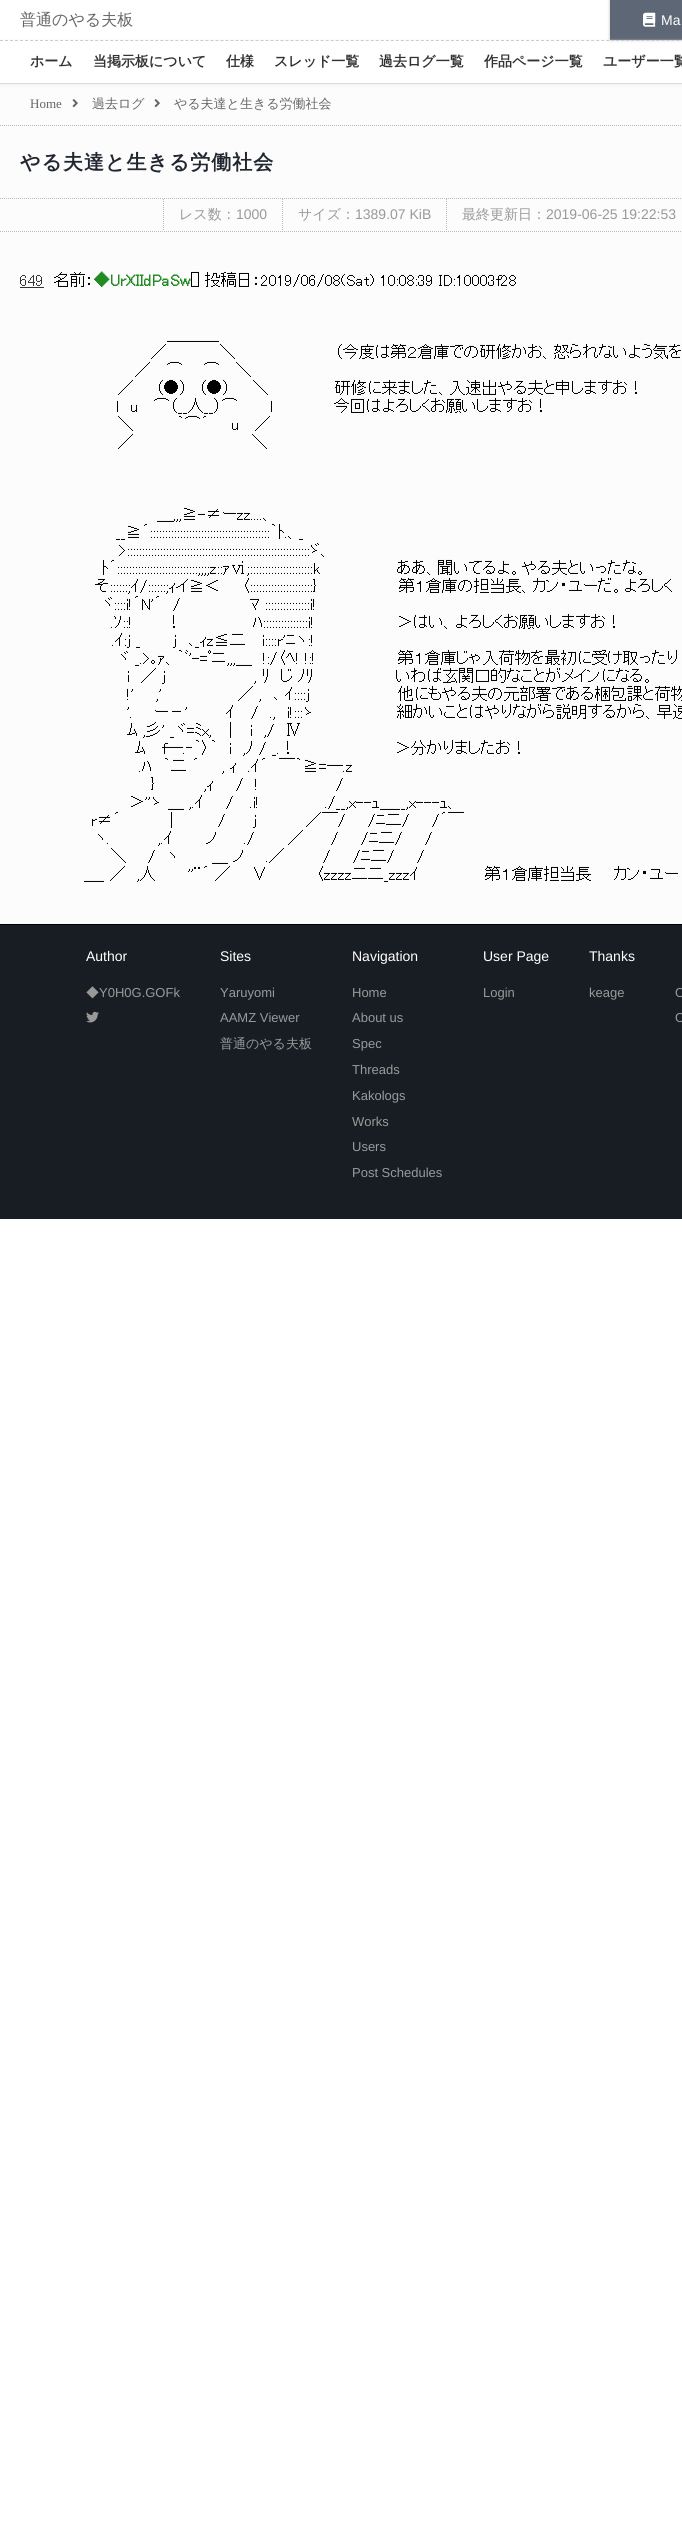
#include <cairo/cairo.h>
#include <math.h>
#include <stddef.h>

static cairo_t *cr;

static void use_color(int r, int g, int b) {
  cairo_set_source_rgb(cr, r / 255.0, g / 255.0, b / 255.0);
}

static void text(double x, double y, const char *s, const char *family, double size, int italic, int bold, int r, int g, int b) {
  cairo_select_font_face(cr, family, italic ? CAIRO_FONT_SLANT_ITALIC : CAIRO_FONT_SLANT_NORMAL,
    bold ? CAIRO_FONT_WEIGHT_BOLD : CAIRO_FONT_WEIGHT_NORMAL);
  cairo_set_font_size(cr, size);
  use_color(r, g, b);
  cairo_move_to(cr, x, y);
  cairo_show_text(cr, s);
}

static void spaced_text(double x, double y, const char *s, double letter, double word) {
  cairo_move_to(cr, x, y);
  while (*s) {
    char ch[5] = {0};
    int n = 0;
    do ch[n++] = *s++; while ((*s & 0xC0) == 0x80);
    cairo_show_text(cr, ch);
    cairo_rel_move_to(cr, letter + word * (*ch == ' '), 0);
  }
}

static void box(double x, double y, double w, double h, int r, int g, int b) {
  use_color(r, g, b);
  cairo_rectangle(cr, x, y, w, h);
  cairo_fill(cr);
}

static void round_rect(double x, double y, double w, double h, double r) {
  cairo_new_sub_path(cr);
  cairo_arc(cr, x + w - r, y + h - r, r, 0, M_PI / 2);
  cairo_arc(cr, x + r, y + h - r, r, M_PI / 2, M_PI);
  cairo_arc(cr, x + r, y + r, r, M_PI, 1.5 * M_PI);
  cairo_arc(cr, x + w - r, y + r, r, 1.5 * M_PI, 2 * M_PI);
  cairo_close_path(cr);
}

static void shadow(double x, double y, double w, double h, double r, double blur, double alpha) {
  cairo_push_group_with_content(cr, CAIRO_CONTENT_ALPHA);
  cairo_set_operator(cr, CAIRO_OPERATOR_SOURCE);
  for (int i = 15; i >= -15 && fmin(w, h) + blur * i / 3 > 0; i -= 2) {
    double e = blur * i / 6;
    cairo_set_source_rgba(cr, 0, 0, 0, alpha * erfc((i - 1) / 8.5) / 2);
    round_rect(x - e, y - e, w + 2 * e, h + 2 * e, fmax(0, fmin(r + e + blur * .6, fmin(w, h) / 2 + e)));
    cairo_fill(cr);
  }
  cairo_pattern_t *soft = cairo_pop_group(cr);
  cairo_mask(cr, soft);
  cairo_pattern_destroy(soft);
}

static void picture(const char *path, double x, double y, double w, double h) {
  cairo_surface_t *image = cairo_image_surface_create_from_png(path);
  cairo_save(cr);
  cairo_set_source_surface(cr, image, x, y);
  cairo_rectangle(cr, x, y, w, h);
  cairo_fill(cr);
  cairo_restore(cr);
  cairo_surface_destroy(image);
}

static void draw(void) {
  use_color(255, 255, 255);
  cairo_paint(cr);
  use_color(187, 187, 187);
  shadow(610, 0, 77, 40, 0, 1.5, 1);
  box(610, 0, 72, 40, 93, 103, 117);
  picture("img_01.png", 643, 12, 13, 15);
  box(0, 84, 682, 840, 252, 252, 252);
  cairo_save(cr);
  cairo_set_fill_rule(cr, CAIRO_FILL_RULE_EVEN_ODD);
  cairo_new_path(cr);
  cairo_move_to(cr, 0, 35);
  cairo_line_to(cr, 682, 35);
  cairo_line_to(cr, 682, 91);
  cairo_line_to(cr, 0, 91);
  cairo_close_path(cr);
  cairo_move_to(cr, 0, 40);
  cairo_line_to(cr, 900, 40);
  cairo_line_to(cr, 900, 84);
  cairo_line_to(cr, 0, 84);
  cairo_close_path(cr);
  cairo_clip(cr);
  use_color(238, 238, 238);
  shadow(0, 41, 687, 44, 0, 1.5, 1);
  cairo_restore(cr);
  cairo_new_path(cr);
  cairo_move_to(cr, 0, 40.5);
  cairo_line_to(cr, 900, 40.5);
  use_color(204, 204, 204);
  cairo_set_line_width(cr, 1);
  cairo_set_dash(cr, (double[]){3, 2.01}, 2, 0);
  cairo_stroke(cr);
  box(0, 83, 682, 1, 221, 221, 221);
  picture("img_02.png", 72, 99, 6, 9);
  picture("img_02.png", 154, 99, 6, 9);
  cairo_new_path(cr);
  cairo_move_to(cr, 0, 125.5);
  cairo_line_to(cr, 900, 125.5);
  use_color(187, 187, 187);
  cairo_set_dash(cr, (double[]){1, 1}, 2, 0);
  cairo_stroke(cr);
  cairo_new_path(cr);
  cairo_move_to(cr, 0, 198.5);
  cairo_line_to(cr, 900, 198.5);
  cairo_stroke(cr);
  cairo_new_path(cr);
  cairo_move_to(cr, 0, 231.5);
  cairo_line_to(cr, 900, 231.5);
  cairo_stroke(cr);
  cairo_new_path(cr);
  cairo_move_to(cr, 163.5, 199);
  cairo_line_to(cr, 163.5, 231);
  cairo_stroke(cr);
  cairo_new_path(cr);
  cairo_move_to(cr, 282.5, 199);
  cairo_line_to(cr, 282.5, 231);
  cairo_stroke(cr);
  cairo_new_path(cr);
  cairo_move_to(cr, 446.5, 199);
  cairo_line_to(cr, 446.5, 231);
  cairo_stroke(cr);
  box(20, 287, 24, 1, 51, 51, 51);
  box(0, 924, 682, 1, 0, 0, 0);
  box(0, 925, 682, 294, 24, 29, 36);
  picture("img_03.png", 86, 1011, 13, 12);
  text(20, 25, "普通のやる夫板", "WenQuanYi Zen Hei Medium", 16, 0, 0, 102, 102, 102);
  text(661, 25, "Ma", "Liberation Sans", 14, 0, 0, 255, 255, 255);
  text(30, 66, "ホーム", "WenQuanYi Zen Hei", 14, 0, 1, 51, 51, 51);
  text(93, 66, "当掲示板について", "WenQuanYi Zen Hei", 14, 0, 1, 51, 51, 51);
  text(226, 66, "仕様", "WenQuanYi Zen Hei", 14, 0, 1, 51, 51, 51);
  text(274, 66, "スレッド一覧", "WenQuanYi Zen Hei", 14, 0, 1, 51, 51, 51);
  text(379, 66, "過去ログ一覧", "WenQuanYi Zen Hei", 14, 0, 1, 51, 51, 51);
  text(484, 66, "作品ページ一覧", "WenQuanYi Zen Hei", 14, 0, 1, 51, 51, 51);
  text(603, 66, "ユーザー一覧", "WenQuanYi Zen Hei", 14, 0, 1, 51, 51, 51);
  text(30, 108, "Home", "Liberation Serif", 13, 0, 0, 102, 102, 102);
  text(92, 108, "過去ログ", "WenQuanYi Zen Hei Medium", 13, 0, 0, 102, 102, 102);
  text(174, 108, "やる夫達と生きる労働社会", "WenQuanYi Zen Hei Medium", 13, 0, 0, 102, 102, 102);
  cairo_select_font_face(cr, "WenQuanYi Zen Hei", CAIRO_FONT_SLANT_NORMAL, CAIRO_FONT_WEIGHT_BOLD);
  cairo_set_font_size(cr, 20);
  use_color(33, 39, 48);
  spaced_text(20, 169, "やる夫達と生きる労働社会", 1, 0);
  text(179, 219, "レス数：", "WenQuanYi Zen Hei Medium", 14, 0, 0, 153, 153, 153);
  text(236, 219, "1000", "Liberation Sans", 14, 0, 0, 153, 153, 153);
  text(298, 219, "サイズ：", "WenQuanYi Zen Hei Medium", 14, 0, 0, 153, 153, 153);
  text(355, 219, "1389.07 KiB", "Liberation Sans", 14, 0, 0, 153, 153, 153);
  text(462, 219, "最終更新日：", "WenQuanYi Zen Hei Medium", 14, 0, 0, 153, 153, 153);
  text(546, 219, "2019-06-25 19:22:53", "Liberation Sans", 14, 0, 0, 153, 153, 153);
  text(20, 286, "649", "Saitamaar", 16, 0, 0, 51, 51, 51);
  text(54, 286, "名前：", "Saitamaar", 16, 0, 0, 0, 0, 0);
  text(94, 286, "◆UrXIIdPaSw", "Saitamaar", 16, 0, 1, 34, 139, 34);
  text(190, 286, "[] 投稿日：2019/06/08(Sat) 10:08:39 ID:10003f28", "Saitamaar", 16, 0, 0, 0, 0, 0);
  text(167, 340, "＿＿＿_", "Saitamaar", 16, 0, 0, 0, 0, 0);
  text(151, 358, "／ 　 　 　 ＼　　　　　　　　　（今度は第２倉庫での研修かお、怒られないよう気を", "Saitamaar", 16, 0, 0, 0, 0, 0);
  text(135, 376, "／　 ⌒ 　 ⌒　 ＼", "Saitamaar", 16, 0, 0, 0, 0, 0);
  text(118, 394, "／　　（●）　（●）　　＼　　　　　　研修に来ました、入速出やる夫と申しますお！", "Saitamaar", 16, 0, 0, 0, 0, 0);
  text(116, 412, "l　u　 ⌒（__人__）⌒　 　 ｌ　　　　　 今回はよろしくお願いしますお！", "Saitamaar", 16, 0, 0, 0, 0, 0);
  text(118, 430, "＼　　 　 ｀⌒´　　u　 ／", "Saitamaar", 16, 0, 0, 0, 0, 0);
  text(118, 448, "／　　　 　 　 　 　 　 ＼", "Saitamaar", 16, 0, 0, 0, 0, 0);
  text(157, 520, "＿,,,≧-≠ーzz....、", "Saitamaar", 16, 0, 0, 0, 0, 0);
  text(116, 538, "__≧´::::::::::::::::::::::::::::::::::::::::｀ﾄ.、_", "Saitamaar", 16, 0, 0, 0, 0, 0);
  text(119, 556, ">:::::::::::::::::::::::::::::::::::::::::::::::::::::::::::::ゞ、", "Saitamaar", 16, 0, 0, 0, 0, 0);
  text(102, 574, "ﾄ´:::::::::::::::::::::::::::;;;;z::ｧⅵ;:::::::::::::::::::::k　　　　　　　ああ、聞いてるよ。やる夫といったな。", "Saitamaar", 16, 0, 0, 0, 0, 0);
  text(95, 592, "そ::::::;ｲ/::::::;ｨイ≧＜ 　 〈:::::::::::::::::::::}　　　　　　　 第１倉庫の担当長、カン・ユーだ。よろしく", "Saitamaar", 16, 0, 0, 0, 0, 0);
  text(102, 610, "ヾ::::i!´N'´　/ 　 　 　 　 ﾏ :::::::::::::::i!", "Saitamaar", 16, 0, 0, 0, 0, 0);
  text(111, 628, ".ｿ::!　　　！　　　　　　 ﾊ:::::::::::::::i!　　　　　　　 ＞はい、よろしくお願いしますお！", "Saitamaar", 16, 0, 0, 0, 0, 0);
  text(112, 646, ".ｲ:j _　 　 j　､_ｨz≦二　 i::::r'ﾆヽ:!", "Saitamaar", 16, 0, 0, 0, 0, 0);
  text(118, 664, "ヾ _.>｡ｧ、｀ﾞ'-=ﾟニ,,,＿　!:/〈ﾍ! !:!　　　　　　　 第１倉庫じゃ入荷物を最初に受け取ったり", "Saitamaar", 16, 0, 0, 0, 0, 0);
  text(127, 682, "i　／ j　　　　　　　　, ﾘ　じ ﾉﾘ　　　　　　　 いわば玄関口的なことがメインになる。", "Saitamaar", 16, 0, 0, 0, 0, 0);
  text(127, 700, "!'　　,'　　　　　 　 ／ ,　､ ｲ::::j　　　　　　　　他にもやる夫の元部署である梱包課と荷物", "Saitamaar", 16, 0, 0, 0, 0, 0);
  text(127, 718, "'. 　 ー－'　　　 ｲ　 /　.,　i!:::ゝ　　　　　　　 細かいことはやりながら説明するから、早速", "Saitamaar", 16, 0, 0, 0, 0, 0);
  text(127, 736, "ﾑ ,彡' _ヾ=ﾐx,　｜　i　,/　Ⅳ", "Saitamaar", 16, 0, 0, 0, 0, 0);
  text(135, 754, "ﾑ　 f―.‐｀〉｀　i　,ﾉ / _.！　　　　　　　　　＞分かりましたお！", "Saitamaar", 16, 0, 0, 0, 0, 0);
  text(139, 772, ".ﾊ　｀二 ´　　, ｨ　.ｲ´　￣｀≧=―.z", "Saitamaar", 16, 0, 0, 0, 0, 0);
  text(151, 790, "}　　　　 ,ｨ　　/　!　　　　　　　/", "Saitamaar", 16, 0, 0, 0, 0, 0);
  text(129, 808, "＞''ゝ ＿ ,.ｲ　　/ 　.i!　　　　 　 ./__,x--ｭ＿__,x---ｭ、", "Saitamaar", 16, 0, 0, 0, 0, 0);
  text(91, 826, "r≠´　　　　 |　　　　/　　 j　　　　 ／￣/　　/ﾆ二/　　/´￣", "Saitamaar", 16, 0, 0, 0, 0, 0);
  text(95, 844, "ヽ.　 　 　 ,.ｲ　　　ノ　　 ./　　　／　　 /　　/ﾆ二/　　/", "Saitamaar", 16, 0, 0, 0, 0, 0);
  text(111, 862, "＼ 　 /　ヽ　　　＿ ノ　　.／　　　 /　　/ﾆ二/　　/", "Saitamaar", 16, 0, 0, 0, 0, 0);
  text(84, 880, "＿_ ／　,人　 　 ''¨´ ／ 　 ∨　 　 　 〈zzzz二二_zzzｲ　　　　　　第１倉庫担当長　　カン・ユー", "Saitamaar", 16, 0, 0, 0, 0, 0);
  text(86, 961, "Author", "Liberation Sans", 14, 0, 0, 255, 255, 255);
  text(86, 997, "◆", "WenQuanYi Zen Hei Medium", 13, 0, 0, 153, 153, 153);
  text(99, 997, "Y0H0G.GOFk", "Liberation Sans", 13, 0, 0, 153, 153, 153);
  text(220, 961, "Sites", "Liberation Sans", 14, 0, 0, 255, 255, 255);
  text(220, 997, "Yaruyomi", "Liberation Sans", 13, 0, 0, 153, 153, 153);
  text(220, 1022, "AAMZ Viewer", "Liberation Sans", 13, 0, 0, 153, 153, 153);
  text(220, 1048, "普通のやる夫板", "WenQuanYi Zen Hei Medium", 13, 0, 0, 153, 153, 153);
  text(352, 961, "Navigation", "Liberation Sans", 14, 0, 0, 255, 255, 255);
  text(352, 997, "Home", "Liberation Sans", 13, 0, 0, 153, 153, 153);
  text(352, 1022, "About us", "Liberation Sans", 13, 0, 0, 153, 153, 153);
  text(352, 1048, "Spec", "Liberation Sans", 13, 0, 0, 153, 153, 153);
  text(352, 1074, "Threads", "Liberation Sans", 13, 0, 0, 153, 153, 153);
  text(352, 1100, "Kakologs", "Liberation Sans", 13, 0, 0, 153, 153, 153);
  text(352, 1126, "Works", "Liberation Sans", 13, 0, 0, 153, 153, 153);
  text(352, 1151, "Users", "Liberation Sans", 13, 0, 0, 153, 153, 153);
  text(352, 1177, "Post Schedules", "Liberation Sans", 13, 0, 0, 153, 153, 153);
  text(483, 961, "User Page", "Liberation Sans", 14, 0, 0, 255, 255, 255);
  text(483, 997, "Login", "Liberation Sans", 13, 0, 0, 153, 153, 153);
  text(589, 961, "Thanks", "Liberation Sans", 14, 0, 0, 255, 255, 255);
  text(589, 997, "keage", "Liberation Sans", 13, 0, 0, 153, 153, 153);
  text(675, 997, "O", "Liberation Sans", 13, 0, 0, 153, 153, 153);
  text(675, 1022, "O", "Liberation Sans", 13, 0, 0, 153, 153, 153);
}

int main(void) {
  cairo_surface_t *surface = cairo_image_surface_create(CAIRO_FORMAT_RGB24, 682, 2548);
  cr = cairo_create(surface);
  cairo_font_options_t *options = cairo_font_options_create();
  cairo_font_options_set_hint_metrics(options, CAIRO_HINT_METRICS_OFF);
  cairo_font_options_set_hint_style(options, CAIRO_HINT_STYLE_NONE);
  cairo_set_font_options(cr, options);
  cairo_set_miter_limit(cr, 4);
  draw();
  cairo_surface_write_to_png(surface, "out.png");
  cairo_font_options_destroy(options);
  cairo_destroy(cr);
  cairo_surface_destroy(surface);
  return 0;
}
